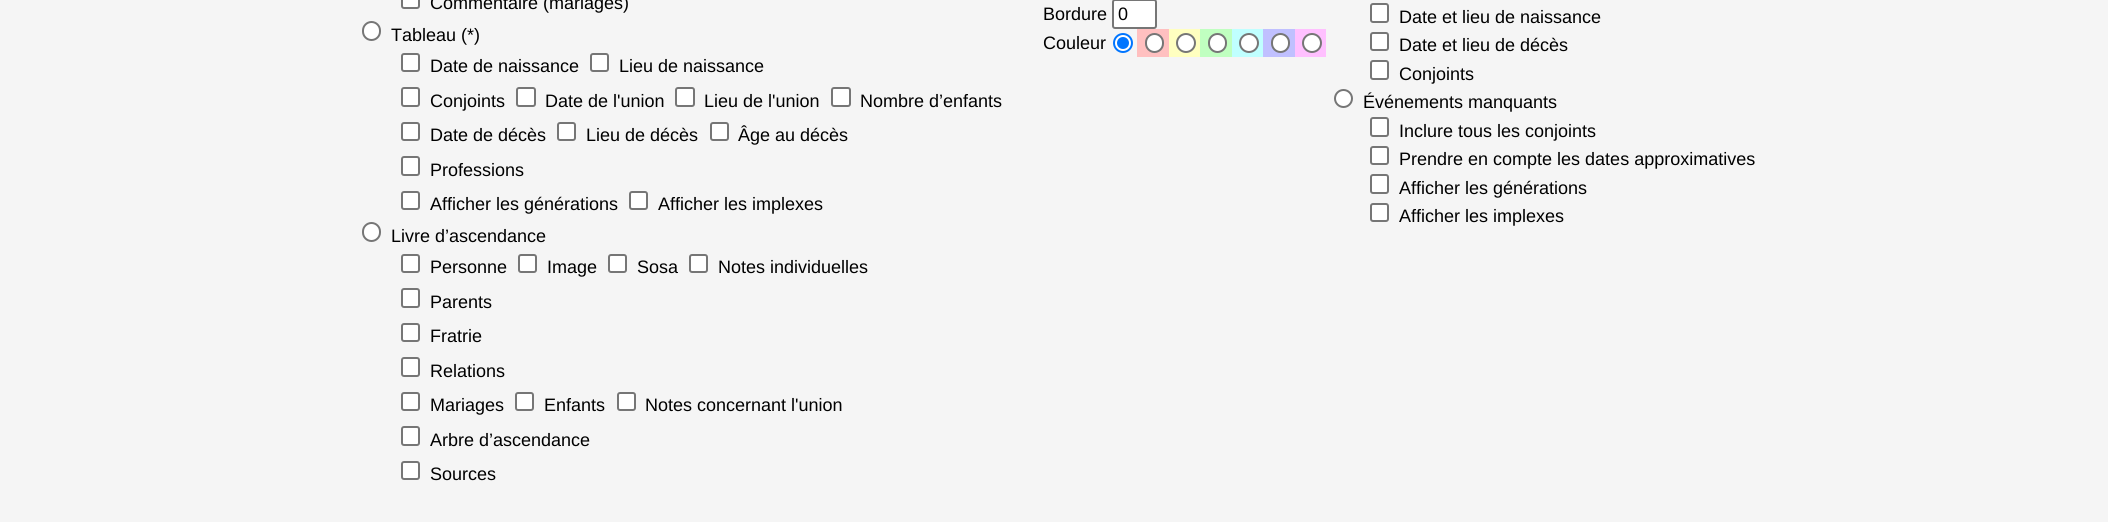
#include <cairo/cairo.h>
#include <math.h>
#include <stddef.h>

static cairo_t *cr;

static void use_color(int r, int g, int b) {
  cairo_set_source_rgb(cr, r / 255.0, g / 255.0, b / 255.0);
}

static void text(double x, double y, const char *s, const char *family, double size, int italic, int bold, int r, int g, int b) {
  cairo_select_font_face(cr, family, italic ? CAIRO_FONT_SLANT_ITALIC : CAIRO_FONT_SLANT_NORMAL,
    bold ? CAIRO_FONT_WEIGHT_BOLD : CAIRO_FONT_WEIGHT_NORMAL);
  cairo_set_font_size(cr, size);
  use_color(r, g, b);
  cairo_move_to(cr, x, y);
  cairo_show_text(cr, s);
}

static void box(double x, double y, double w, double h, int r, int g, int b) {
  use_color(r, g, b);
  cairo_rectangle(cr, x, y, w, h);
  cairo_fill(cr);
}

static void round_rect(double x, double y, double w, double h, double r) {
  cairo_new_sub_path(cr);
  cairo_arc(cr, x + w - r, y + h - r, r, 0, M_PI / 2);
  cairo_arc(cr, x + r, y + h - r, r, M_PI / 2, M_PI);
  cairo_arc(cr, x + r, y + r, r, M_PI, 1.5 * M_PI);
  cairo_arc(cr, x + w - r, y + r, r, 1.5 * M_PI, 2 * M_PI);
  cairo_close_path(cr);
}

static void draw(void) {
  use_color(245, 245, 245);
  cairo_paint(cr);
  use_color(255, 255, 255);
  round_rect(402, -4, 17, 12, 2);
  cairo_fill_preserve(cr);
  use_color(118, 118, 118);
  cairo_stroke(cr);
  use_color(255, 255, 255);
  round_rect(363, 22, 17, 18, 8.5);
  cairo_fill_preserve(cr);
  use_color(118, 118, 118);
  cairo_stroke(cr);
  use_color(255, 255, 255);
  round_rect(402, 54, 17, 17, 2);
  cairo_fill_preserve(cr);
  use_color(118, 118, 118);
  cairo_stroke(cr);
  use_color(255, 255, 255);
  round_rect(591, 54, 17, 17, 2);
  cairo_fill_preserve(cr);
  use_color(118, 118, 118);
  cairo_stroke(cr);
  use_color(255, 255, 255);
  round_rect(402, 88, 17, 18, 2);
  cairo_fill_preserve(cr);
  use_color(118, 118, 118);
  cairo_stroke(cr);
  use_color(255, 255, 255);
  round_rect(517, 88, 18, 18, 2);
  cairo_fill_preserve(cr);
  use_color(118, 118, 118);
  cairo_stroke(cr);
  use_color(255, 255, 255);
  round_rect(676, 88, 18, 18, 2);
  cairo_fill_preserve(cr);
  use_color(118, 118, 118);
  cairo_stroke(cr);
  use_color(255, 255, 255);
  round_rect(832, 88, 18, 18, 2);
  cairo_fill_preserve(cr);
  use_color(118, 118, 118);
  cairo_stroke(cr);
  use_color(255, 255, 255);
  round_rect(402, 123, 17, 17, 2);
  cairo_fill_preserve(cr);
  use_color(118, 118, 118);
  cairo_stroke(cr);
  use_color(255, 255, 255);
  round_rect(558, 123, 17, 17, 2);
  cairo_fill_preserve(cr);
  use_color(118, 118, 118);
  cairo_stroke(cr);
  use_color(255, 255, 255);
  round_rect(711, 123, 17, 17, 2);
  cairo_fill_preserve(cr);
  use_color(118, 118, 118);
  cairo_stroke(cr);
  use_color(255, 255, 255);
  round_rect(402, 157, 17, 18, 2);
  cairo_fill_preserve(cr);
  use_color(118, 118, 118);
  cairo_stroke(cr);
  use_color(255, 255, 255);
  round_rect(402, 192, 17, 17, 2);
  cairo_fill_preserve(cr);
  use_color(118, 118, 118);
  cairo_stroke(cr);
  use_color(255, 255, 255);
  round_rect(630, 192, 17, 17, 2);
  cairo_fill_preserve(cr);
  use_color(118, 118, 118);
  cairo_stroke(cr);
  use_color(255, 255, 255);
  round_rect(363, 223, 17, 18, 8.5);
  cairo_fill_preserve(cr);
  use_color(118, 118, 118);
  cairo_stroke(cr);
  use_color(255, 255, 255);
  round_rect(402, 255, 17, 17, 2);
  cairo_fill_preserve(cr);
  use_color(118, 118, 118);
  cairo_stroke(cr);
  use_color(255, 255, 255);
  round_rect(519, 255, 17, 17, 2);
  cairo_fill_preserve(cr);
  use_color(118, 118, 118);
  cairo_stroke(cr);
  use_color(255, 255, 255);
  round_rect(609, 255, 17, 17, 2);
  cairo_fill_preserve(cr);
  use_color(118, 118, 118);
  cairo_stroke(cr);
  use_color(255, 255, 255);
  round_rect(690, 255, 17, 17, 2);
  cairo_fill_preserve(cr);
  use_color(118, 118, 118);
  cairo_stroke(cr);
  use_color(255, 255, 255);
  round_rect(402, 289, 17, 18, 2);
  cairo_fill_preserve(cr);
  use_color(118, 118, 118);
  cairo_stroke(cr);
  use_color(255, 255, 255);
  round_rect(402, 324, 17, 17, 2);
  cairo_fill_preserve(cr);
  use_color(118, 118, 118);
  cairo_stroke(cr);
  use_color(255, 255, 255);
  round_rect(402, 358, 17, 18, 2);
  cairo_fill_preserve(cr);
  use_color(118, 118, 118);
  cairo_stroke(cr);
  use_color(255, 255, 255);
  round_rect(402, 393, 17, 17, 2);
  cairo_fill_preserve(cr);
  use_color(118, 118, 118);
  cairo_stroke(cr);
  use_color(255, 255, 255);
  round_rect(516, 393, 17, 17, 2);
  cairo_fill_preserve(cr);
  use_color(118, 118, 118);
  cairo_stroke(cr);
  use_color(255, 255, 255);
  round_rect(618, 393, 17, 17, 2);
  cairo_fill_preserve(cr);
  use_color(118, 118, 118);
  cairo_stroke(cr);
  use_color(255, 255, 255);
  round_rect(402, 427, 17, 18, 2);
  cairo_fill_preserve(cr);
  use_color(118, 118, 118);
  cairo_stroke(cr);
  use_color(255, 255, 255);
  round_rect(402, 462, 17, 17, 2);
  cairo_fill_preserve(cr);
  use_color(118, 118, 118);
  cairo_stroke(cr);
  use_color(255, 255, 255);
  round_rect(1113, 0, 43, 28, 2);
  cairo_fill_preserve(cr);
  use_color(118, 118, 118);
  cairo_stroke(cr);
  use_color(255, 255, 255);
  cairo_arc(cr, 1123, 43, 9, 0, 2 * M_PI);
  cairo_fill_preserve(cr);
  use_color(0, 117, 255);
  cairo_stroke(cr);
  cairo_arc(cr, 1123, 43, 6, 0, 2 * M_PI);
  cairo_fill(cr);
  box(1137, 29, 32, 28, 255, 192, 192);
  use_color(255, 255, 255);
  round_rect(1146, 34, 17, 18, 8.5);
  cairo_fill_preserve(cr);
  use_color(118, 118, 118);
  cairo_stroke(cr);
  box(1169, 29, 31, 28, 255, 255, 192);
  use_color(255, 255, 255);
  cairo_arc(cr, 1186, 43, 9, 0, 2 * M_PI);
  cairo_fill_preserve(cr);
  use_color(118, 118, 118);
  cairo_stroke(cr);
  box(1200, 29, 32, 28, 192, 255, 192);
  use_color(255, 255, 255);
  round_rect(1209, 34, 17, 18, 8.5);
  cairo_fill_preserve(cr);
  use_color(118, 118, 118);
  cairo_stroke(cr);
  box(1232, 29, 31, 28, 192, 255, 255);
  use_color(255, 255, 255);
  cairo_arc(cr, 1249, 43, 9, 0, 2 * M_PI);
  cairo_fill_preserve(cr);
  use_color(118, 118, 118);
  cairo_stroke(cr);
  box(1263, 29, 32, 28, 192, 192, 255);
  use_color(255, 255, 255);
  round_rect(1272, 34, 17, 18, 8.5);
  cairo_fill_preserve(cr);
  use_color(118, 118, 118);
  cairo_stroke(cr);
  box(1295, 29, 31, 28, 255, 192, 255);
  use_color(255, 255, 255);
  cairo_arc(cr, 1312, 43, 9, 0, 2 * M_PI);
  cairo_fill_preserve(cr);
  use_color(118, 118, 118);
  cairo_stroke(cr);
  use_color(255, 255, 255);
  round_rect(1371, 4, 17, 18, 2);
  cairo_fill_preserve(cr);
  use_color(118, 118, 118);
  cairo_stroke(cr);
  use_color(255, 255, 255);
  round_rect(1371, 33, 17, 17, 2);
  cairo_fill_preserve(cr);
  use_color(118, 118, 118);
  cairo_stroke(cr);
  use_color(255, 255, 255);
  round_rect(1371, 61, 17, 18, 2);
  cairo_fill_preserve(cr);
  use_color(118, 118, 118);
  cairo_stroke(cr);
  use_color(255, 255, 255);
  cairo_arc(cr, 1343.5, 98.5, 8.5, 0, 2 * M_PI);
  cairo_fill_preserve(cr);
  use_color(118, 118, 118);
  cairo_stroke(cr);
  use_color(255, 255, 255);
  round_rect(1371, 118, 17, 18, 2);
  cairo_fill_preserve(cr);
  use_color(118, 118, 118);
  cairo_stroke(cr);
  use_color(255, 255, 255);
  round_rect(1371, 147, 17, 17, 2);
  cairo_fill_preserve(cr);
  use_color(118, 118, 118);
  cairo_stroke(cr);
  use_color(255, 255, 255);
  round_rect(1371, 175, 17, 18, 2);
  cairo_fill_preserve(cr);
  use_color(118, 118, 118);
  cairo_stroke(cr);
  use_color(255, 255, 255);
  round_rect(1371, 204, 17, 17, 2);
  cairo_fill_preserve(cr);
  use_color(118, 118, 118);
  cairo_stroke(cr);
  text(430, 9, "Commentaire (mariages)", "Liberation Sans", 18, 0, 0, 0, 0, 0);
  text(391, 41, "Tableau (*)", "Liberation Sans", 18, 0, 0, 0, 0, 0);
  text(430, 72, "Date de naissance", "Liberation Sans", 18, 0, 0, 0, 0, 0);
  text(619, 72, "Lieu de naissance", "Liberation Sans", 18, 0, 0, 0, 0, 0);
  text(430, 107, "Conjoints", "Liberation Sans", 18, 0, 0, 0, 0, 0);
  text(545, 107, "Date de l'union", "Liberation Sans", 18, 0, 0, 0, 0, 0);
  text(704, 107, "Lieu de l'union", "Liberation Sans", 18, 0, 0, 0, 0, 0);
  text(860, 107, "Nombre d’enfants", "Liberation Sans", 18, 0, 0, 0, 0, 0);
  text(430, 141, "Date de décès", "Liberation Sans", 18, 0, 0, 0, 0, 0);
  text(586, 141, "Lieu de décès", "Liberation Sans", 18, 0, 0, 0, 0, 0);
  text(738, 141, "Âge au décès", "Liberation Sans", 18, 0, 0, 0, 0, 0);
  text(430, 176, "Professions", "Liberation Sans", 18, 0, 0, 0, 0, 0);
  text(430, 210, "Afficher les générations", "Liberation Sans", 18, 0, 0, 0, 0, 0);
  text(658, 210, "Afficher les implexes", "Liberation Sans", 18, 0, 0, 0, 0, 0);
  text(391, 242, "Livre d’ascendance", "Liberation Sans", 18, 0, 0, 0, 0, 0);
  text(430, 273, "Personne", "Liberation Sans", 18, 0, 0, 0, 0, 0);
  text(547, 273, "Image", "Liberation Sans", 18, 0, 0, 0, 0, 0);
  text(637, 273, "Sosa", "Liberation Sans", 18, 0, 0, 0, 0, 0);
  text(718, 273, "Notes individuelles", "Liberation Sans", 18, 0, 0, 0, 0, 0);
  text(430, 308, "Parents", "Liberation Sans", 18, 0, 0, 0, 0, 0);
  text(430, 342, "Fratrie", "Liberation Sans", 18, 0, 0, 0, 0, 0);
  text(430, 377, "Relations", "Liberation Sans", 18, 0, 0, 0, 0, 0);
  text(430, 411, "Mariages", "Liberation Sans", 18, 0, 0, 0, 0, 0);
  text(544, 411, "Enfants", "Liberation Sans", 18, 0, 0, 0, 0, 0);
  text(645, 411, "Notes concernant l'union", "Liberation Sans", 18, 0, 0, 0, 0, 0);
  text(430, 446, "Arbre d’ascendance", "Liberation Sans", 18, 0, 0, 0, 0, 0);
  text(430, 480, "Sources", "Liberation Sans", 18, 0, 0, 0, 0, 0);
  text(1043, 20, "Bordure", "Liberation Sans", 18, 0, 0, 0, 0, 0);
  text(1118, 20, "0", "Liberation Sans", 18, 0, 0, 0, 0, 0);
  text(1043, 49, "Couleur", "Liberation Sans", 18, 0, 0, 0, 0, 0);
  text(1399, 23, "Date et lieu de naissance", "Liberation Sans", 18, 0, 0, 0, 0, 0);
  text(1399, 51, "Date et lieu de décès", "Liberation Sans", 18, 0, 0, 0, 0, 0);
  text(1399, 80, "Conjoints", "Liberation Sans", 18, 0, 0, 0, 0, 0);
  text(1363, 108, "Événements manquants", "Liberation Sans", 18, 0, 0, 0, 0, 0);
  text(1399, 137, "Inclure tous les conjoints", "Liberation Sans", 18, 0, 0, 0, 0, 0);
  text(1399, 165, "Prendre en compte les dates approximatives", "Liberation Sans", 18, 0, 0, 0, 0, 0);
  text(1399, 194, "Afficher les générations", "Liberation Sans", 18, 0, 0, 0, 0, 0);
  text(1399, 222, "Afficher les implexes", "Liberation Sans", 18, 0, 0, 0, 0, 0);
}

int main(void) {
  cairo_surface_t *surface = cairo_image_surface_create(CAIRO_FORMAT_RGB24, 2108, 522);
  cr = cairo_create(surface);
  cairo_font_options_t *options = cairo_font_options_create();
  cairo_font_options_set_hint_metrics(options, CAIRO_HINT_METRICS_OFF);
  cairo_font_options_set_hint_style(options, CAIRO_HINT_STYLE_NONE);
  cairo_set_font_options(cr, options);
  cairo_set_miter_limit(cr, 4);
  draw();
  cairo_surface_write_to_png(surface, "out.png");
  cairo_font_options_destroy(options);
  cairo_destroy(cr);
  cairo_surface_destroy(surface);
  return 0;
}
